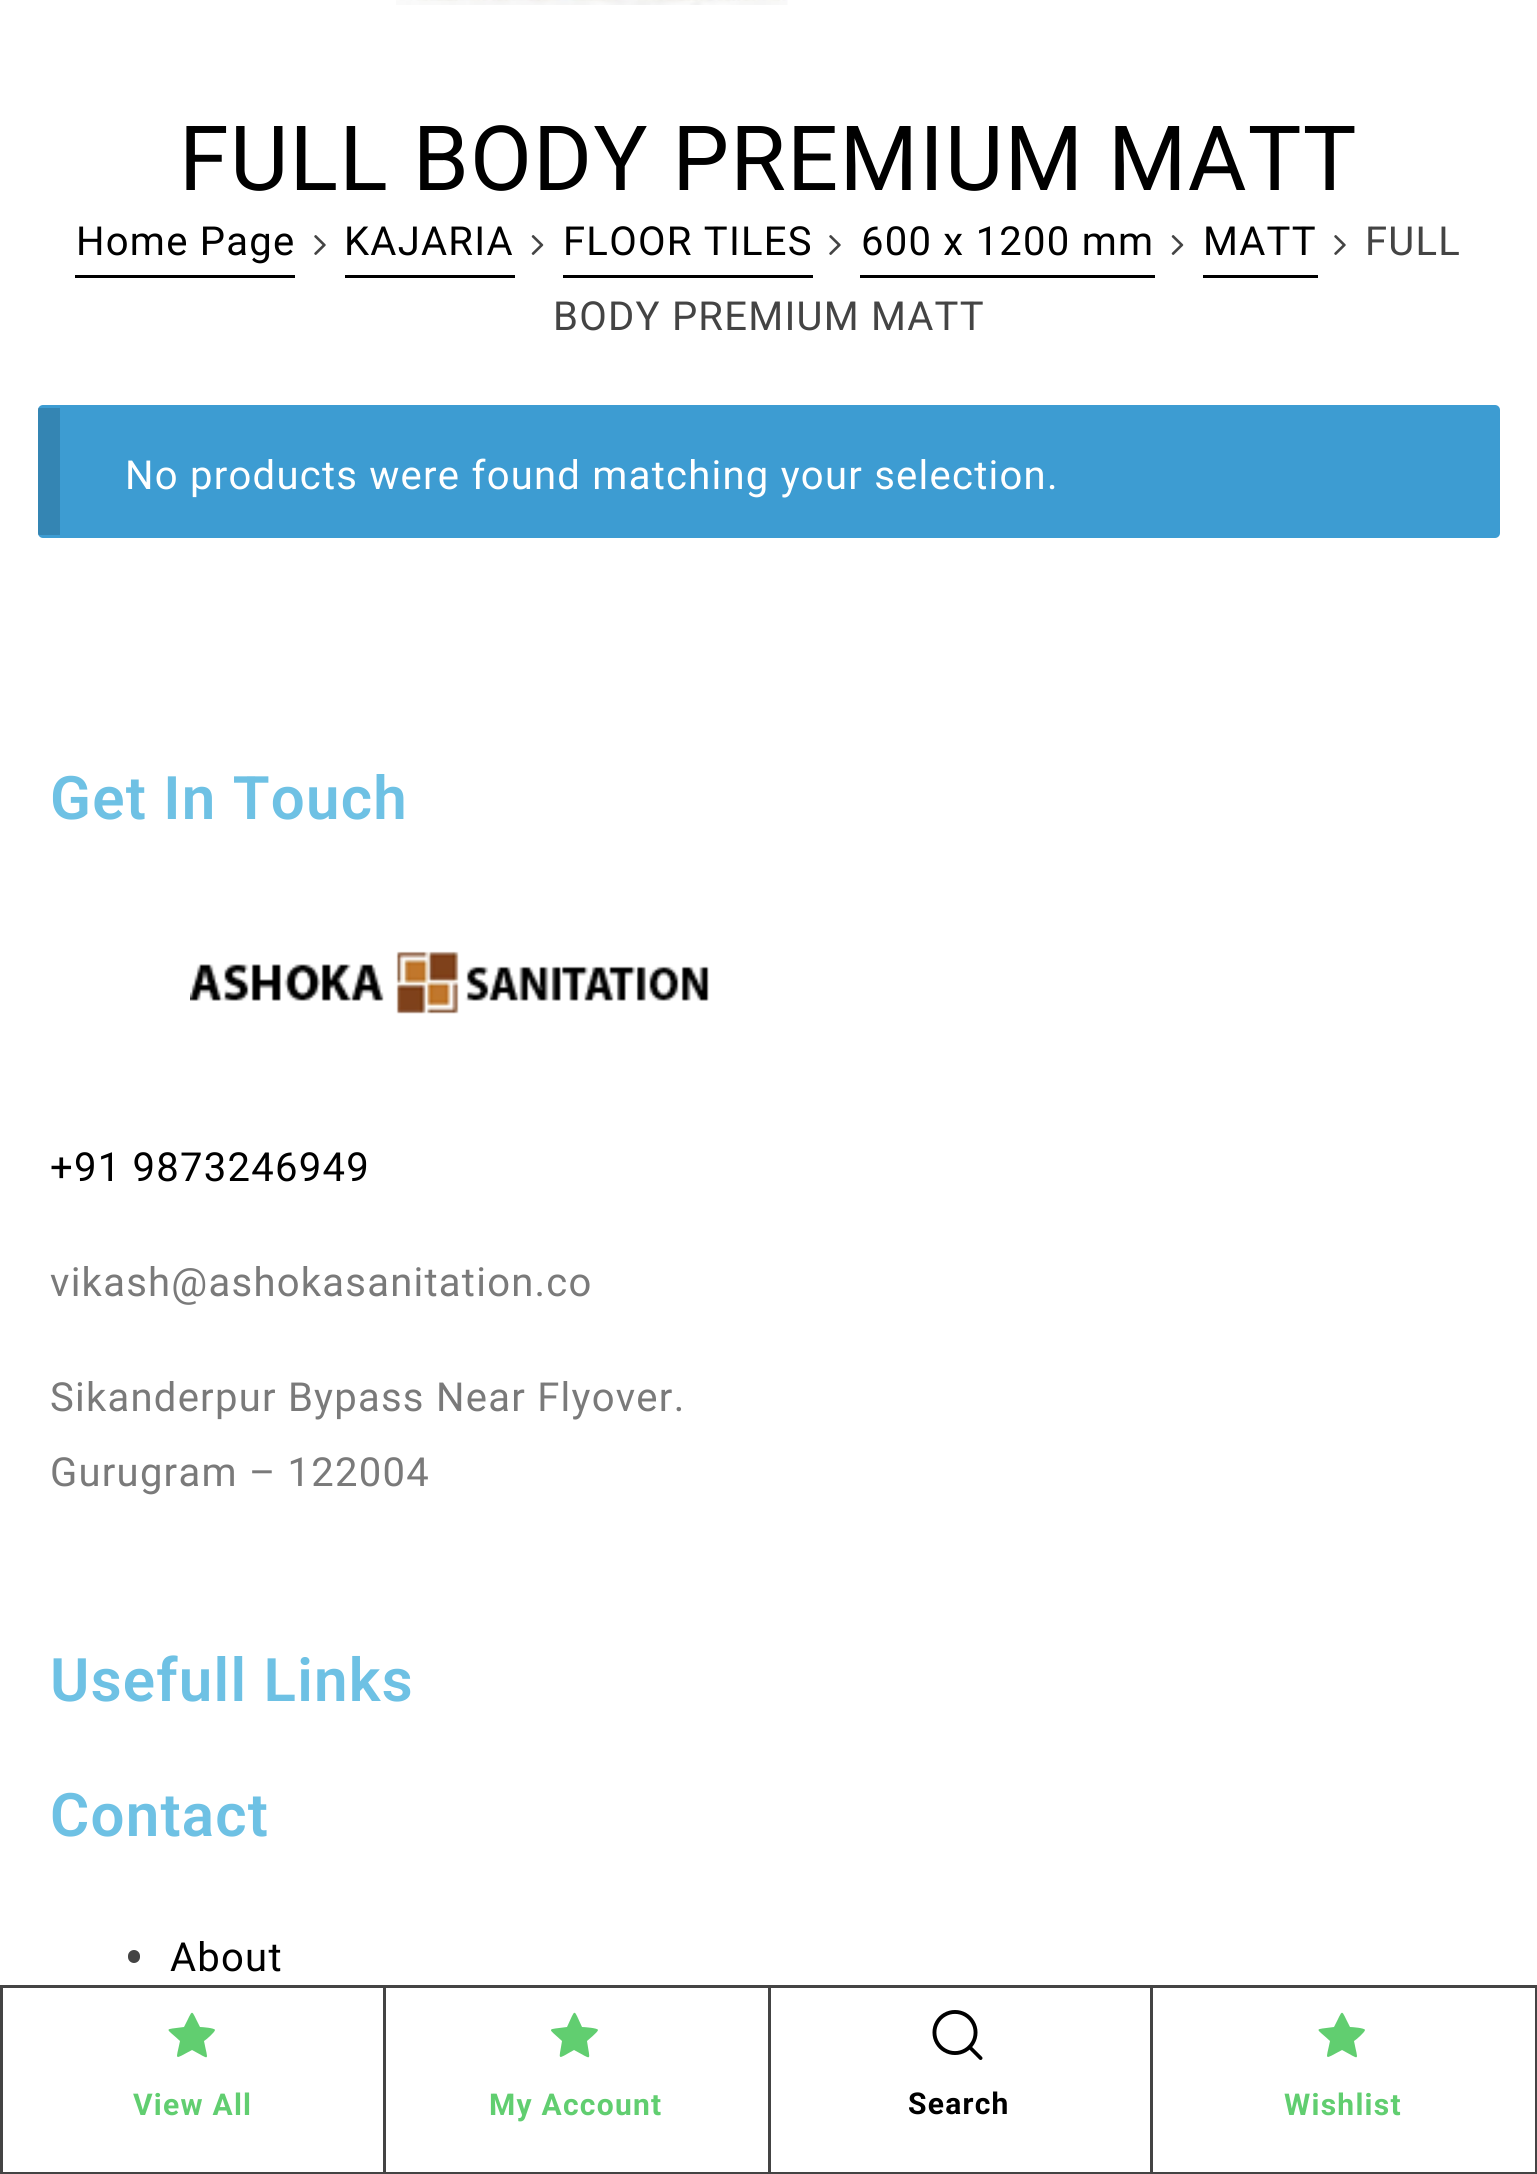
#include <cairo/cairo.h>
#include <math.h>
#include <stddef.h>

static cairo_t *cr;

static void use_color(int r, int g, int b) {
  cairo_set_source_rgb(cr, r / 255.0, g / 255.0, b / 255.0);
}

static void spaced_text(double x, double y, const char *s, double letter, double word) {
  cairo_move_to(cr, x, y);
  while (*s) {
    char ch[5] = {0};
    int n = 0;
    do ch[n++] = *s++; while ((*s & 0xC0) == 0x80);
    cairo_show_text(cr, ch);
    cairo_rel_move_to(cr, letter + word * (*ch == ' '), 0);
  }
}

static void box(double x, double y, double w, double h, int r, int g, int b) {
  use_color(r, g, b);
  cairo_rectangle(cr, x, y, w, h);
  cairo_fill(cr);
}

static void round_rect(double x, double y, double w, double h, double r) {
  cairo_new_sub_path(cr);
  cairo_arc(cr, x + w - r, y + h - r, r, 0, M_PI / 2);
  cairo_arc(cr, x + r, y + h - r, r, M_PI / 2, M_PI);
  cairo_arc(cr, x + r, y + r, r, M_PI, 1.5 * M_PI);
  cairo_arc(cr, x + w - r, y + r, r, 1.5 * M_PI, 2 * M_PI);
  cairo_close_path(cr);
}

static void picture(const char *path, double x, double y, double w, double h) {
  cairo_surface_t *image = cairo_image_surface_create_from_png(path);
  cairo_save(cr);
  cairo_set_source_surface(cr, image, x, y);
  cairo_rectangle(cr, x, y, w, h);
  cairo_fill(cr);
  cairo_restore(cr);
  cairo_surface_destroy(image);
}

static void draw(void) {
  use_color(255, 255, 255);
  cairo_paint(cr);
  picture("img_01.png", 396, 0, 392, 5);
  box(75, 275, 220, 3, 0, 0, 0);
  picture("img_02.png", 314, 235, 12, 20);
  box(345, 275, 170, 3, 0, 0, 0);
  picture("img_03.png", 531, 235, 13, 20);
  box(563, 275, 250, 3, 0, 0, 0);
  picture("img_02.png", 829, 235, 12, 20);
  box(860, 275, 295, 3, 0, 0, 0);
  picture("img_03.png", 1171, 235, 13, 20);
  box(1203, 275, 115, 3, 0, 0, 0);
  picture("img_02.png", 1334, 235, 12, 20);
  use_color(61, 156, 210);
  round_rect(38, 405, 1462, 133, 5);
  cairo_fill(cr);
  cairo_set_source_rgba(cr, 0, 0, 0, 0.15);
  cairo_rectangle(cr, 38, 408, 22, 127);
  cairo_fill(cr);
  picture("img_04.png", 190, 951, 519, 63);
  use_color(68, 68, 68);
  round_rect(128, 1950, 12, 13, 6);
  cairo_fill(cr);
  cairo_rectangle(cr, 1.5, 1986.5, 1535, 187);
  cairo_set_line_width(cr, 3);
  cairo_stroke(cr);
  box(383, 1988, 3, 185, 68, 68, 68);
  use_color(97, 206, 112);
  cairo_new_path(cr);
  cairo_move_to(cr, 215, 2030);
  cairo_curve_to(cr, 215, 2032, 206, 2040, 204, 2041);
  cairo_curve_to(cr, 208, 2062, 211, 2060, 192, 2050);
  cairo_curve_to(cr, 173, 2060, 176, 2061, 180, 2041);
  cairo_curve_to(cr, 165, 2027, 163, 2030, 184, 2027);
  cairo_curve_to(cr, 194, 2008, 190, 2008, 200, 2027);
  cairo_curve_to(cr, 202, 2027, 215, 2028, 215, 2030);
  cairo_close_path(cr);
  cairo_fill(cr);
  box(768, 1988, 3, 185, 68, 68, 68);
  use_color(97, 206, 112);
  cairo_new_path(cr);
  cairo_move_to(cr, 598, 2030);
  cairo_curve_to(cr, 598, 2032, 588, 2040, 587, 2041);
  cairo_curve_to(cr, 590, 2062, 593, 2060, 574, 2050);
  cairo_curve_to(cr, 556, 2060, 559, 2061, 562, 2041);
  cairo_curve_to(cr, 547, 2027, 546, 2030, 567, 2027);
  cairo_curve_to(cr, 576, 2008, 573, 2008, 582, 2027);
  cairo_curve_to(cr, 584, 2027, 598, 2028, 598, 2030);
  cairo_close_path(cr);
  cairo_fill(cr);
  box(1150, 1988, 3, 185, 68, 68, 68);
  picture("img_05.png", 932, 2010, 51, 50);
  use_color(97, 206, 112);
  cairo_new_path(cr);
  cairo_move_to(cr, 1365, 2030);
  cairo_curve_to(cr, 1365, 2032, 1356, 2040, 1354, 2041);
  cairo_curve_to(cr, 1358, 2062, 1361, 2060, 1342, 2050);
  cairo_curve_to(cr, 1323, 2060, 1326, 2061, 1330, 2041);
  cairo_curve_to(cr, 1315, 2027, 1313, 2030, 1334, 2027);
  cairo_curve_to(cr, 1344, 2008, 1340, 2008, 1350, 2027);
  cairo_curve_to(cr, 1352, 2027, 1365, 2028, 1365, 2030);
  cairo_close_path(cr);
  cairo_fill(cr);
  cairo_select_font_face(cr, "Roboto", CAIRO_FONT_SLANT_NORMAL, CAIRO_FONT_WEIGHT_NORMAL);
  cairo_set_font_size(cr, 90);
  use_color(0, 0, 0);
  spaced_text(179, 190, "FULL BODY PREMIUM MATT", 1.25, 0);
  cairo_set_font_size(cr, 40);
  spaced_text(76, 255, "Home Page", 1.25, 0);
  spaced_text(344, 255, "KAJARIA", 1.25, 0);
  spaced_text(563, 255, "FLOOR TILES", 1.25, 0);
  spaced_text(861, 255, "600 x 1200 mm", 1.25, 0);
  spaced_text(1203, 255, "MATT", 1.25, 0);
  use_color(68, 68, 68);
  spaced_text(1365, 255, "FULL", 1.25, 0);
  spaced_text(553, 330, "BODY PREMIUM MATT", 1.25, 0);
  use_color(255, 255, 255);
  spaced_text(125, 489, "No products were found matching your selection.", 1.25, 0);
  cairo_select_font_face(cr, "Roboto SemiBold", CAIRO_FONT_SLANT_NORMAL, CAIRO_FONT_WEIGHT_NORMAL);
  cairo_set_font_size(cr, 60);
  use_color(110, 193, 228);
  spaced_text(50, 819, "Get In Touch", 1.25, 0);
  cairo_select_font_face(cr, "Roboto", CAIRO_FONT_SLANT_NORMAL, CAIRO_FONT_WEIGHT_NORMAL);
  cairo_set_font_size(cr, 40);
  use_color(0, 0, 0);
  spaced_text(50, 1181, "+91 9873246949", 1.25, 0);
  use_color(122, 122, 122);
  spaced_text(50, 1296, "vikash@ashokasanitation.co", 1.25, 0);
  spaced_text(50, 1411, "Sikanderpur Bypass Near Flyover.", 1.25, 0);
  spaced_text(50, 1486, "Gurugram – 122004", 1.25, 0);
  cairo_select_font_face(cr, "Roboto SemiBold", CAIRO_FONT_SLANT_NORMAL, CAIRO_FONT_WEIGHT_NORMAL);
  cairo_set_font_size(cr, 60);
  use_color(110, 193, 228);
  spaced_text(50, 1701, "Usefull Links", 1.25, 0);
  spaced_text(50, 1836, "Contact", 1.25, 0);
  cairo_select_font_face(cr, "Roboto", CAIRO_FONT_SLANT_NORMAL, CAIRO_FONT_WEIGHT_NORMAL);
  cairo_set_font_size(cr, 40);
  use_color(0, 0, 0);
  spaced_text(170, 1971, "About", 1.25, 0);
  cairo_select_font_face(cr, "Roboto", CAIRO_FONT_SLANT_NORMAL, CAIRO_FONT_WEIGHT_BOLD);
  cairo_set_font_size(cr, 30);
  use_color(97, 206, 112);
  spaced_text(133, 2115, "View All", 1.25, 0);
  spaced_text(489, 2115, "My Account", 1.25, 0);
  use_color(0, 0, 0);
  spaced_text(908, 2114, "Search", 1.25, 0);
  use_color(97, 206, 112);
  spaced_text(1284, 2115, "Wishlist", 1.25, 0);
}

int main(void) {
  cairo_surface_t *surface = cairo_image_surface_create(CAIRO_FORMAT_RGB24, 1537, 2174);
  cr = cairo_create(surface);
  cairo_font_options_t *options = cairo_font_options_create();
  cairo_font_options_set_hint_metrics(options, CAIRO_HINT_METRICS_OFF);
  cairo_font_options_set_hint_style(options, CAIRO_HINT_STYLE_NONE);
  cairo_set_font_options(cr, options);
  cairo_set_miter_limit(cr, 4);
  draw();
  cairo_surface_write_to_png(surface, "out.png");
  cairo_font_options_destroy(options);
  cairo_destroy(cr);
  cairo_surface_destroy(surface);
  return 0;
}
